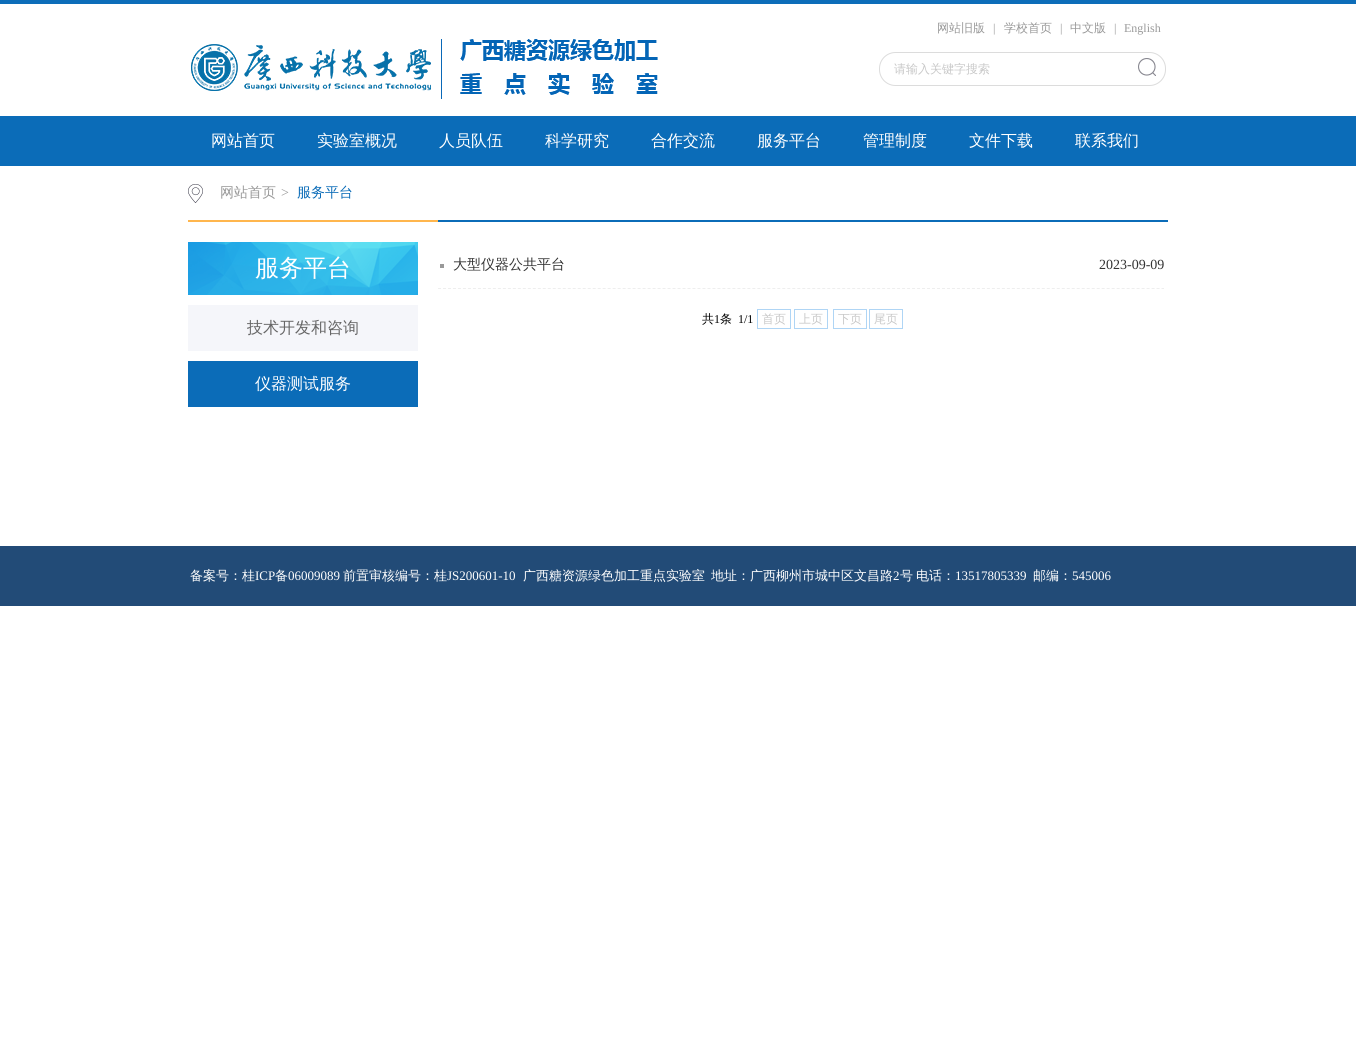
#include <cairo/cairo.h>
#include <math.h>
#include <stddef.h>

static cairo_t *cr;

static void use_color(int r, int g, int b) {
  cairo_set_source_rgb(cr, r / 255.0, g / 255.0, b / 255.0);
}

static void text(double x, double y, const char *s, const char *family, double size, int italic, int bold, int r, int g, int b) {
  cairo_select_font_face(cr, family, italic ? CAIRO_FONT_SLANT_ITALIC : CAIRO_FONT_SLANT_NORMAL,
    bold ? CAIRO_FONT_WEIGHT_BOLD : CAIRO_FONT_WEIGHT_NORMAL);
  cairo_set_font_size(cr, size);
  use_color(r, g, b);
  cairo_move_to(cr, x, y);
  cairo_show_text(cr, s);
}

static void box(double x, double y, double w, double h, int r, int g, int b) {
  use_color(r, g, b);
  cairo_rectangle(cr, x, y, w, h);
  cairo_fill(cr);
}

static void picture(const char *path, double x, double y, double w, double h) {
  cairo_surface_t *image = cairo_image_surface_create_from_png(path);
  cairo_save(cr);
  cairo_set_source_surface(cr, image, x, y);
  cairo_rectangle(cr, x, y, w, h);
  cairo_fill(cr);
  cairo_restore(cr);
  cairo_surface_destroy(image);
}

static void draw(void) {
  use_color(255, 255, 255);
  cairo_paint(cr);
  box(0, 0, 1356, 4, 13, 109, 185);
  picture("img_01.png", 191, 39, 467, 60);
  picture("img_02.png", 879, 52, 287, 34);
  picture("img_03.png", 1138, 58, 18, 18);
  box(0, 116, 1356, 50, 11, 108, 184);
  box(438, 220, 730, 2, 11, 108, 184);
  box(188, 220, 250, 2, 255, 182, 77);
  picture("img_04.png", 188, 184, 15, 19);
  picture("img_05.png", 188, 242, 230, 53);
  box(188, 305, 230, 46, 245, 246, 250);
  box(188, 361, 230, 46, 11, 108, 184);
  box(440, 264, 4, 4, 153, 153, 153);
  cairo_new_path(cr);
  cairo_move_to(cr, 438, 288.5);
  cairo_line_to(cr, 1164, 288.5);
  use_color(238, 238, 238);
  cairo_set_line_width(cr, 1);
  cairo_set_dash(cr, (double[]){3, 1.99}, 2, 0);
  cairo_stroke(cr);
  cairo_rectangle(cr, 757.5, 309.5, 33, 19);
  use_color(175, 213, 245);
  cairo_set_dash(cr, NULL, 0, 0);
  cairo_stroke(cr);
  cairo_rectangle(cr, 794.5, 309.5, 33, 19);
  cairo_stroke(cr);
  cairo_rectangle(cr, 833.5, 309.5, 33, 19);
  cairo_stroke(cr);
  cairo_rectangle(cr, 869.5, 309.5, 33, 19);
  cairo_stroke(cr);
  box(0, 546, 1356, 60, 34, 75, 119);
  text(937, 32, "网站旧版", "WenQuanYi Zen Hei Medium", 12, 0, 0, 153, 153, 153);
  text(993, 32, "|", "Liberation Serif", 12, 0, 0, 153, 153, 153);
  text(1004, 32, "学校首页", "WenQuanYi Zen Hei Medium", 12, 0, 0, 153, 153, 153);
  text(1060, 32, "|", "Liberation Serif", 12, 0, 0, 153, 153, 153);
  text(1070, 32, "中文版", "WenQuanYi Zen Hei Medium", 12, 0, 0, 153, 153, 153);
  text(1114, 32, "|", "Liberation Serif", 12, 0, 0, 153, 153, 153);
  text(1124, 32, "English", "Liberation Serif", 12, 0, 0, 153, 153, 153);
  text(894, 73, "请输入关键字搜索", "WenQuanYi Zen Hei Medium", 12, 0, 0, 200, 200, 200);
  text(211, 146, "网站首页", "WenQuanYi Zen Hei Medium", 16, 0, 0, 255, 255, 255);
  text(317, 146, "实验室概况", "WenQuanYi Zen Hei Medium", 16, 0, 0, 255, 255, 255);
  text(439, 146, "人员队伍", "WenQuanYi Zen Hei Medium", 16, 0, 0, 255, 255, 255);
  text(545, 146, "科学研究", "WenQuanYi Zen Hei Medium", 16, 0, 0, 255, 255, 255);
  text(651, 146, "合作交流", "WenQuanYi Zen Hei Medium", 16, 0, 0, 255, 255, 255);
  text(757, 146, "服务平台", "WenQuanYi Zen Hei Medium", 16, 0, 0, 255, 255, 255);
  text(863, 146, "管理制度", "WenQuanYi Zen Hei Medium", 16, 0, 0, 255, 255, 255);
  text(969, 146, "文件下载", "WenQuanYi Zen Hei Medium", 16, 0, 0, 255, 255, 255);
  text(1075, 146, "联系我们", "WenQuanYi Zen Hei Medium", 16, 0, 0, 255, 255, 255);
  text(220, 197, "网站首页", "WenQuanYi Zen Hei Medium", 14, 0, 0, 153, 153, 153);
  text(281, 197, ">", "Liberation Serif", 14, 0, 0, 153, 153, 153);
  text(297, 197, "服务平台", "WenQuanYi Zen Hei Medium", 14, 0, 0, 11, 108, 184);
  text(255, 276, "服务平台", "WenQuanYi Zen Hei Medium", 24, 0, 0, 255, 255, 255);
  text(247, 333, "技术开发和咨询", "WenQuanYi Zen Hei Medium", 16, 0, 0, 102, 102, 102);
  text(255, 389, "仪器测试服务", "WenQuanYi Zen Hei Medium", 16, 0, 0, 255, 255, 255);
  text(453, 269, "大型仪器公共平台", "WenQuanYi Zen Hei Medium", 14, 0, 0, 51, 51, 51);
  text(1099, 269, "2023-09-09", "Liberation Serif", 14, 0, 0, 51, 51, 51);
  text(702, 323, "共", "WenQuanYi Zen Hei Medium", 12, 0, 0, 0, 0, 0);
  text(714, 323, "1", "Liberation Serif", 12, 0, 0, 0, 0, 0);
  text(720, 323, "条", "WenQuanYi Zen Hei Medium", 12, 0, 0, 0, 0, 0);
  text(738, 323, "1/1", "Liberation Serif", 12, 0, 0, 0, 0, 0);
  text(762, 323, "首页", "WenQuanYi Zen Hei Medium", 12, 0, 0, 200, 200, 200);
  text(799, 323, "上页", "WenQuanYi Zen Hei Medium", 12, 0, 0, 200, 200, 200);
  text(838, 323, "下页", "WenQuanYi Zen Hei Medium", 12, 0, 0, 200, 200, 200);
  text(874, 323, "尾页", "WenQuanYi Zen Hei Medium", 12, 0, 0, 200, 200, 200);
  text(190, 580, "备案号：桂", "WenQuanYi Zen Hei Medium", 13, 0, 0, 255, 255, 255);
  text(255, 580, "ICP", "Liberation Serif", 13, 0, 0, 255, 255, 255);
  text(275, 580, "备", "WenQuanYi Zen Hei Medium", 13, 0, 0, 255, 255, 255);
  text(288, 580, "06009089", "Liberation Serif", 13, 0, 0, 255, 255, 255);
  text(343, 580, "前置审核编号：桂", "WenQuanYi Zen Hei Medium", 13, 0, 0, 255, 255, 255);
  text(447, 580, "JS200601-10", "Liberation Serif", 13, 0, 0, 255, 255, 255);
  text(523, 580, "广西糖资源绿色加工重点实验室", "WenQuanYi Zen Hei Medium", 13, 0, 0, 255, 255, 255);
  text(711, 580, "地址：广西柳州市城中区文昌路", "WenQuanYi Zen Hei Medium", 13, 0, 0, 255, 255, 255);
  text(893, 580, "2", "Liberation Serif", 13, 0, 0, 255, 255, 255);
  text(900, 580, "号", "WenQuanYi Zen Hei Medium", 13, 0, 0, 255, 255, 255);
  text(916, 580, "电话：", "WenQuanYi Zen Hei Medium", 13, 0, 0, 255, 255, 255);
  text(955, 580, "13517805339", "Liberation Serif", 13, 0, 0, 255, 255, 255);
  text(1033, 580, "邮编：", "WenQuanYi Zen Hei Medium", 13, 0, 0, 255, 255, 255);
  text(1072, 580, "545006", "Liberation Serif", 13, 0, 0, 255, 255, 255);
}

int main(void) {
  cairo_surface_t *surface = cairo_image_surface_create(CAIRO_FORMAT_RGB24, 1356, 1054);
  cr = cairo_create(surface);
  cairo_font_options_t *options = cairo_font_options_create();
  cairo_font_options_set_hint_metrics(options, CAIRO_HINT_METRICS_OFF);
  cairo_font_options_set_hint_style(options, CAIRO_HINT_STYLE_NONE);
  cairo_set_font_options(cr, options);
  cairo_set_miter_limit(cr, 4);
  draw();
  cairo_surface_write_to_png(surface, "out.png");
  cairo_font_options_destroy(options);
  cairo_destroy(cr);
  cairo_surface_destroy(surface);
  return 0;
}
